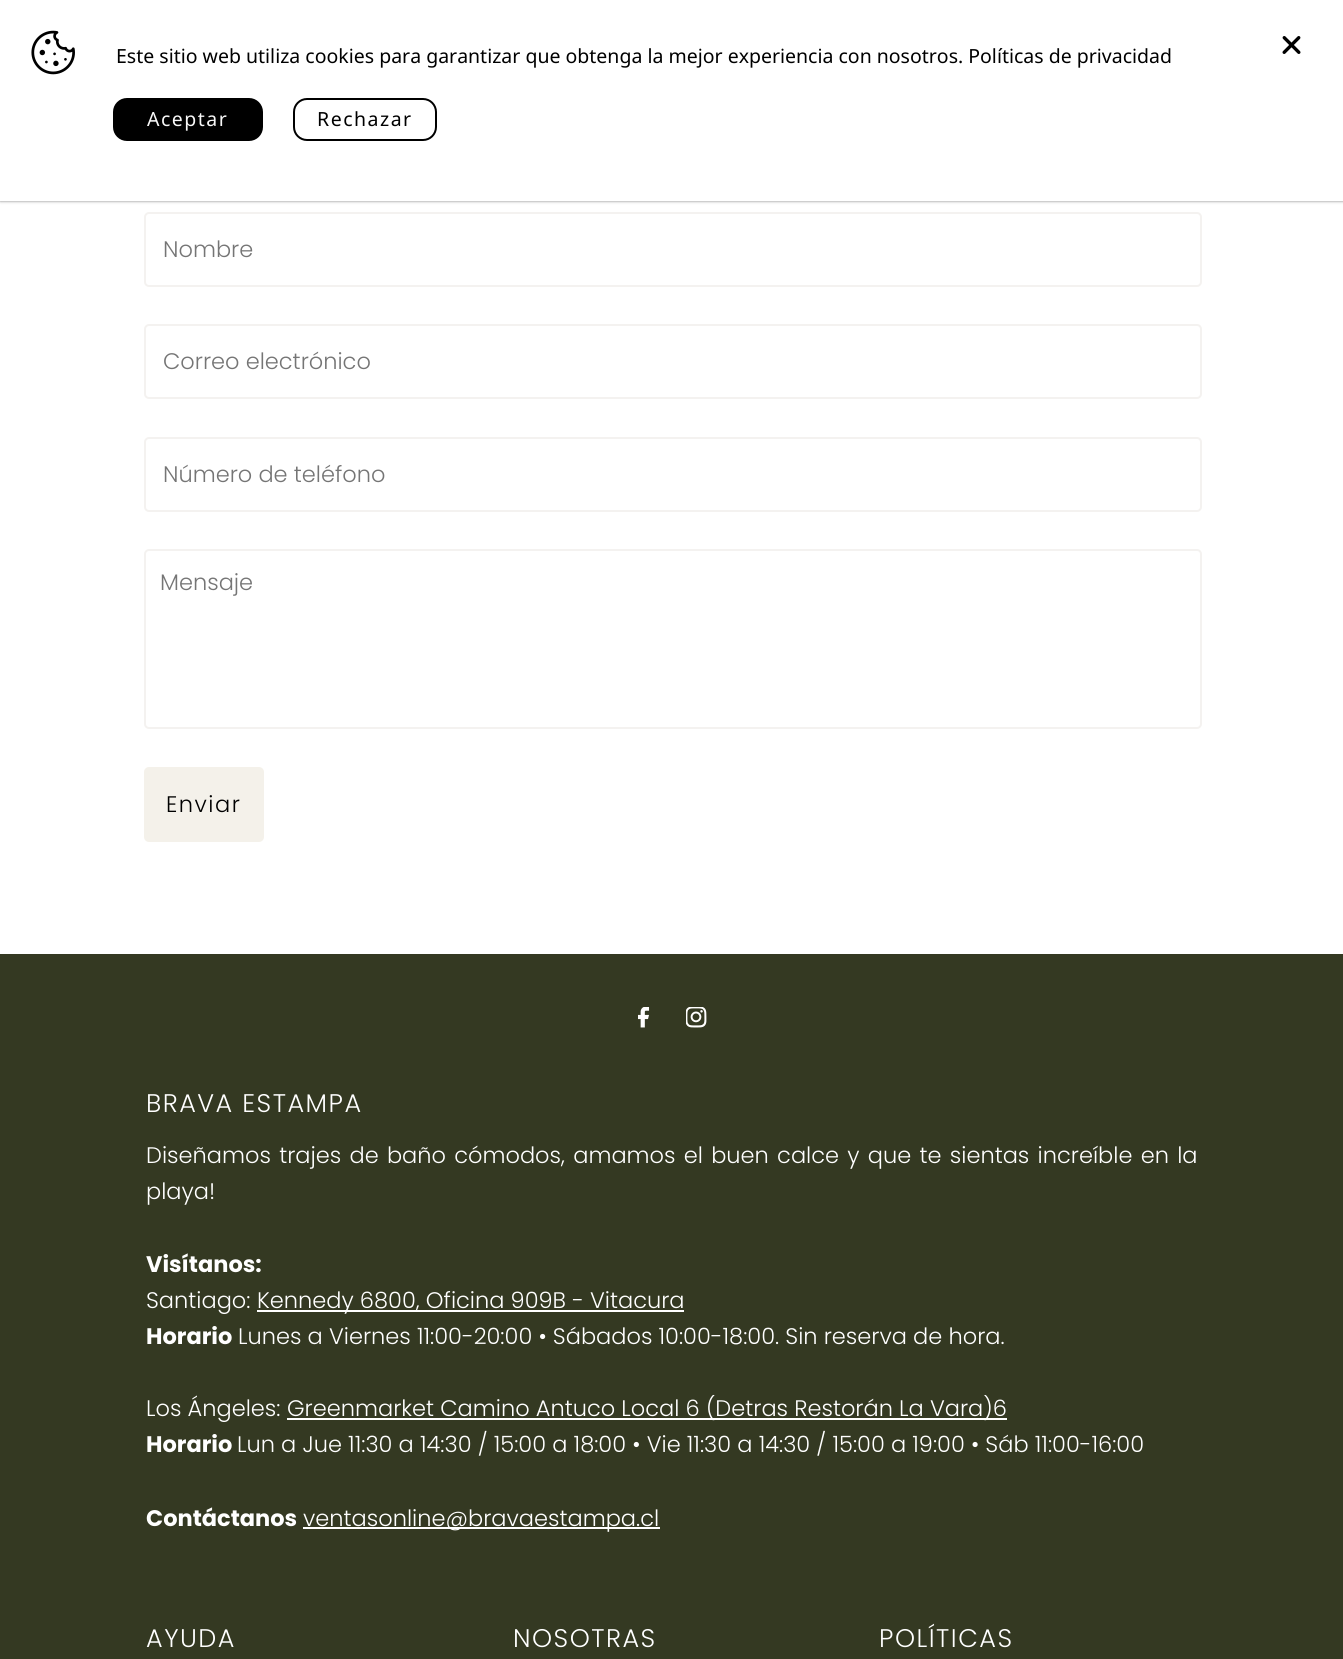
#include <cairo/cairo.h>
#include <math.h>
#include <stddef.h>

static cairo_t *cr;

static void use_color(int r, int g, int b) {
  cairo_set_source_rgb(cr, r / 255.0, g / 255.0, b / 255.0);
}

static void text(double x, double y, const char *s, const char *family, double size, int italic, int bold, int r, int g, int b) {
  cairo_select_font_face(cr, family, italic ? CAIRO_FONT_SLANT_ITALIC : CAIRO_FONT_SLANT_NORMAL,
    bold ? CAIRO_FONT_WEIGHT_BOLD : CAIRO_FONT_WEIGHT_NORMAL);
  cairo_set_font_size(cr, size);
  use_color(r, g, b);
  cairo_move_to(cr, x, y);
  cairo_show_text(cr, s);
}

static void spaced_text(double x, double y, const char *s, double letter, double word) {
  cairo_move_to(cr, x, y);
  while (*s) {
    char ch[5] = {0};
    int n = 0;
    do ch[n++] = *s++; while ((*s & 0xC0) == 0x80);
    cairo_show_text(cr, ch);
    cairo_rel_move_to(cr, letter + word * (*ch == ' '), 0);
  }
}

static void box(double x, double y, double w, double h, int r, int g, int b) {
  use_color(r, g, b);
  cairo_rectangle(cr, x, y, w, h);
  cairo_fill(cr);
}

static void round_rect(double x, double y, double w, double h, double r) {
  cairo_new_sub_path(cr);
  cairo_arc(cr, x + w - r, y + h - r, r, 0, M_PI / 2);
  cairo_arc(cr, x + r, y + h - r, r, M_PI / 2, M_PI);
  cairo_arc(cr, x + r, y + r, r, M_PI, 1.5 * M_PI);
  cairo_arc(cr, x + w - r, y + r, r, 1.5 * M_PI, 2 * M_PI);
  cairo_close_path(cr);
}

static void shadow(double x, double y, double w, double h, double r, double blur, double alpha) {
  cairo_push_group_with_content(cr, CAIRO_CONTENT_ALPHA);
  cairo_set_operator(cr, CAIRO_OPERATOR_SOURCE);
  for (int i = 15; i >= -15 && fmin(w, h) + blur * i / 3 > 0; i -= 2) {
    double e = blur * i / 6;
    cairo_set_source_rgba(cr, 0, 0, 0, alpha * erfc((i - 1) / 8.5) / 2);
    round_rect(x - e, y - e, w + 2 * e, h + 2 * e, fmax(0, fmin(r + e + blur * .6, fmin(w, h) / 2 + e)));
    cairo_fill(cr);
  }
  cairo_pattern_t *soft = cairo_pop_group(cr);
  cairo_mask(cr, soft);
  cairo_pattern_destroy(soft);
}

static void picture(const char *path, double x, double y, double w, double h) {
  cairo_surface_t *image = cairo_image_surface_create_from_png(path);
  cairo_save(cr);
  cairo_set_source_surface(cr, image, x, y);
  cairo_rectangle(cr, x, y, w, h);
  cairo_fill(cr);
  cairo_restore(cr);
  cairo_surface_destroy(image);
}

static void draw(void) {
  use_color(255, 255, 255);
  cairo_paint(cr);
  use_color(0, 0, 0);
  shadow(0, 0, 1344, 201, 0, 1.5, 0.5);
  box(0, 0, 1343, 201, 255, 255, 255);
  picture("img_01.png", 1282, 36, 19, 18);
  picture("img_02.png", 31, 30, 44, 45);
  use_color(0, 0, 0);
  round_rect(113, 98, 150, 43, 14);
  cairo_fill(cr);
  round_rect(294, 99, 142, 41, 13);
  cairo_stroke(cr);
  round_rect(145, 213, 1056, 73, 4);
  use_color(244, 242, 240);
  cairo_stroke(cr);
  round_rect(145, 325, 1056, 73, 4);
  cairo_stroke(cr);
  round_rect(145, 438, 1056, 73, 4);
  cairo_stroke(cr);
  round_rect(145, 550, 1056, 178, 4);
  cairo_stroke(cr);
  use_color(244, 241, 234);
  round_rect(144, 767, 120, 75, 5);
  cairo_fill(cr);
  box(0, 954, 1343, 705, 52, 57, 34);
  picture("img_03.png", 638, 1007, 12, 21);
  picture("img_04.png", 686, 1007, 21, 21);
  box(257, 1310, 427, 2, 255, 255, 255);
  box(287, 1418, 720, 2, 255, 255, 255);
  box(303, 1527, 357, 2, 255, 255, 255);
  text(116, 63, "Este sitio web utiliza cookies para garantizar que obtenga la mejor experiencia con nosotros. Políticas de privacidad", "Noto Sans", 19.5, 0, 0, 0, 0, 0);
  use_color(248, 248, 248);
  spaced_text(147, 126, "Aceptar", 1.5, 0);
  use_color(0, 0, 0);
  spaced_text(317, 126, "Rechazar", 1.5, 0);
  text(163, 257, "Nombre", "Poppins Light", 22.5, 0, 0, 117, 117, 117);
  text(163, 369, "Correo electrónico", "Poppins Light", 22.5, 0, 0, 117, 117, 117);
  text(163, 482, "Número de teléfono", "Poppins Light", 22.5, 0, 0, 117, 117, 117);
  text(160, 590, "Mensaje", "Poppins Light", 22.5, 0, 0, 117, 117, 117);
  use_color(0, 0, 0);
  spaced_text(166, 812, "Enviar", 1.5, 0);
  cairo_set_font_size(cr, 25.5);
  use_color(255, 255, 255);
  spaced_text(146, 1112, "BRAVA ESTAMPA", 1.5, 0);
  cairo_set_font_size(cr, 22.5);
  spaced_text(146, 1163, "Diseñamos trajes de baño cómodos, amamos el buen calce y que te sientas increíble en la", 0, 2.1);
  text(146, 1199, "playa!", "Poppins Light", 22.5, 0, 0, 255, 255, 255);
  text(146, 1272, "Visítanos:", "Poppins", 22.5, 0, 1, 255, 255, 255);
  text(146, 1308, "Santiago:", "Poppins Light", 22.5, 0, 0, 255, 255, 255);
  text(257, 1308, "Kennedy 6800, Oficina 909B - Vitacura", "Poppins Light", 22.5, 0, 0, 255, 255, 255);
  text(146, 1344, "Horario", "Poppins", 22.5, 0, 1, 255, 255, 255);
  text(238, 1344, "Lunes a Viernes 11:00-20:00 • Sábados 10:00-18:00. Sin reserva de hora.", "Poppins Light", 22.5, 0, 0, 255, 255, 255);
  text(146, 1416, "Los Ángeles:", "Poppins Light", 22.5, 0, 0, 255, 255, 255);
  text(287, 1416, "Greenmarket Camino Antuco Local 6 (Detras Restorán La Vara)6", "Poppins Light", 22.5, 0, 0, 255, 255, 255);
  text(146, 1452, "Horario", "Poppins", 22.5, 0, 1, 255, 255, 255);
  text(237, 1452, "Lun a Jue 11:30 a 14:30 / 15:00 a 18:00 • Vie 11:30 a 14:30 / 15:00 a 19:00 • Sáb 11:00-16:00", "Poppins Light", 22.5, 0, 0, 255, 255, 255);
  text(146, 1526, "Contáctanos", "Poppins", 22.5, 0, 1, 255, 255, 255);
  text(303, 1526, "ventasonline@bravaestampa.cl", "Poppins Light", 22.5, 0, 0, 255, 255, 255);
  cairo_set_font_size(cr, 25.5);
  spaced_text(146, 1647, "AYUDA", 1.5, 0);
  spaced_text(513, 1647, "NOSOTRAS", 1.5, 0);
  spaced_text(879, 1647, "POLÍTICAS", 1.5, 0);
}

int main(void) {
  cairo_surface_t *surface = cairo_image_surface_create(CAIRO_FORMAT_RGB24, 1343, 1659);
  cr = cairo_create(surface);
  cairo_font_options_t *options = cairo_font_options_create();
  cairo_font_options_set_hint_metrics(options, CAIRO_HINT_METRICS_OFF);
  cairo_font_options_set_hint_style(options, CAIRO_HINT_STYLE_NONE);
  cairo_set_font_options(cr, options);
  cairo_set_miter_limit(cr, 4);
  draw();
  cairo_surface_write_to_png(surface, "out.png");
  cairo_font_options_destroy(options);
  cairo_destroy(cr);
  cairo_surface_destroy(surface);
  return 0;
}
